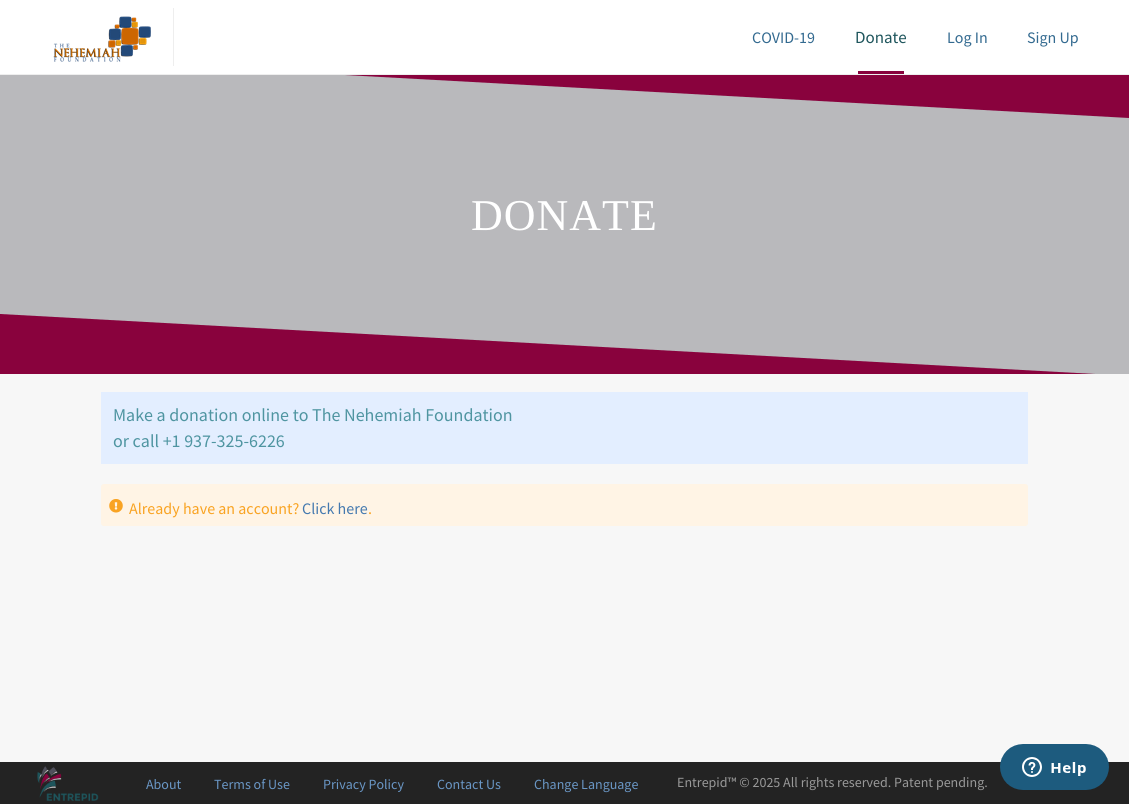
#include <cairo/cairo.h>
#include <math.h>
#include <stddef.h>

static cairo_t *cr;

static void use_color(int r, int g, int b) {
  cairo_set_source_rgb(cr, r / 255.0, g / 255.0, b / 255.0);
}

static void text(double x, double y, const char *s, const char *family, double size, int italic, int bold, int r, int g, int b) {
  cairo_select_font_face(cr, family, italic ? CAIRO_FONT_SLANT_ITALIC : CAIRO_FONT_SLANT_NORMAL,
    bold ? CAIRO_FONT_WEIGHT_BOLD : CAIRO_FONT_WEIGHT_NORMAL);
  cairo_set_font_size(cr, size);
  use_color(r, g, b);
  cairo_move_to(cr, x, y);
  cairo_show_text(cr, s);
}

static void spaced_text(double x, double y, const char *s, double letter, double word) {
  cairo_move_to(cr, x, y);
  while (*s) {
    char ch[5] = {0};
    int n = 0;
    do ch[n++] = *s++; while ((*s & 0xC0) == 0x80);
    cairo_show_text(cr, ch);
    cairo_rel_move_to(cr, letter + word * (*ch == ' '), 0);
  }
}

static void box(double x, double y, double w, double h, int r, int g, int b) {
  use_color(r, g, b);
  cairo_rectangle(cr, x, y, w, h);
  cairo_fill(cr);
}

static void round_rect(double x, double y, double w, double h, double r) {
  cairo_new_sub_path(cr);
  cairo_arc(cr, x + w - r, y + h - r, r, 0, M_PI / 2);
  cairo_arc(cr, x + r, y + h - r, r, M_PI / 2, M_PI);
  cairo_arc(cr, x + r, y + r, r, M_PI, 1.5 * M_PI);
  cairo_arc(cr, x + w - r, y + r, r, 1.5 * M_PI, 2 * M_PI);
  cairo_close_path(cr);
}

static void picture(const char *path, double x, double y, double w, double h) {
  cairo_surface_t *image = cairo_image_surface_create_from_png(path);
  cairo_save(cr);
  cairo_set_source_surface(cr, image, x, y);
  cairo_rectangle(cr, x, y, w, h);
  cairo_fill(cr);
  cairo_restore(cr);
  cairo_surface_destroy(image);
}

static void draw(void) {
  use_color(247, 247, 247);
  cairo_paint(cr);
  box(0, 75, 1129, 299, 185, 185, 188);
  use_color(137, 2, 61);
  cairo_new_path(cr);
  cairo_move_to(cr, 1129, 58);
  cairo_line_to(cr, 1129, 118);
  cairo_line_to(cr, 34, 58);
  cairo_close_path(cr);
  cairo_fill(cr);
  box(0, 0, 1129, 74, 255, 255, 255);
  box(0, 74, 1129, 1, 238, 238, 238);
  box(173, 8, 1, 58, 238, 238, 238);
  picture("img_01.png", 53, 16, 98, 46);
  box(858, 71, 46, 3, 137, 2, 61);
  cairo_new_path(cr);
  cairo_move_to(cr, 0, 374);
  cairo_line_to(cr, 0, 314);
  cairo_line_to(cr, 1095, 374);
  cairo_close_path(cr);
  cairo_fill(cr);
  box(101, 392, 927, 72, 227, 238, 255);
  use_color(255, 244, 229);
  round_rect(101.5, 484.5, 926, 41, 2.5);
  cairo_fill_preserve(cr);
  cairo_set_line_width(cr, 1);
  cairo_stroke(cr);
  picture("img_02.png", 109, 499, 14, 14);
  box(0, 762, 1129, 42, 35, 35, 35);
  picture("img_03.png", 37, 766, 62, 35);
  picture("img_04.png", 1000, 744, 109, 46);
  text(752, 43, "COVID-19", "Source Sans Pro", 16, 0, 0, 51, 106, 144);
  text(855, 43, "Donate", "Source Sans Pro", 17, 0, 0, 30, 85, 92);
  text(947, 43, "Log In", "Source Sans Pro", 16, 0, 0, 51, 106, 144);
  text(1027, 43, "Sign Up", "Source Sans Pro", 16, 0, 0, 51, 106, 144);
  cairo_select_font_face(cr, "Liberation Serif", CAIRO_FONT_SLANT_NORMAL, CAIRO_FONT_WEIGHT_NORMAL);
  cairo_set_font_size(cr, 44);
  use_color(255, 255, 255);
  spaced_text(471, 230, "DONATE", 1, 0);
  text(113, 421, "Make a donation online to The Nehemiah Foundation", "Source Sans Pro", 18, 0, 0, 79, 149, 161);
  text(113, 447, "or call +1 937-325-6226", "Source Sans Pro", 18, 0, 0, 79, 149, 161);
  text(129, 514, "Already have an account?", "Source Sans Pro", 16, 0, 0, 249, 163, 34);
  text(302, 514, "Click here", "Source Sans Pro", 16, 0, 0, 68, 121, 175);
  text(368, 514, ".", "Source Sans Pro", 16, 0, 0, 249, 163, 34);
  text(146, 789, "About", "Source Sans Pro", 14, 0, 0, 106, 151, 198);
  text(214, 789, "Terms of Use", "Source Sans Pro", 14, 0, 0, 106, 151, 198);
  text(323, 789, "Privacy Policy", "Source Sans Pro", 14, 0, 0, 106, 151, 198);
  text(437, 789, "Contact Us", "Source Sans Pro", 14, 0, 0, 106, 151, 198);
  text(534, 789, "Change Language", "Source Sans Pro", 14, 0, 0, 106, 151, 198);
  text(677, 787, "Entrepid™ © 2025 All rights reserved. Patent pending.", "Source Sans Pro", 14, 0, 0, 153, 153, 153);
}

int main(void) {
  cairo_surface_t *surface = cairo_image_surface_create(CAIRO_FORMAT_RGB24, 1129, 804);
  cr = cairo_create(surface);
  cairo_font_options_t *options = cairo_font_options_create();
  cairo_font_options_set_hint_metrics(options, CAIRO_HINT_METRICS_OFF);
  cairo_font_options_set_hint_style(options, CAIRO_HINT_STYLE_NONE);
  cairo_set_font_options(cr, options);
  cairo_set_miter_limit(cr, 4);
  draw();
  cairo_surface_write_to_png(surface, "out.png");
  cairo_font_options_destroy(options);
  cairo_destroy(cr);
  cairo_surface_destroy(surface);
  return 0;
}
